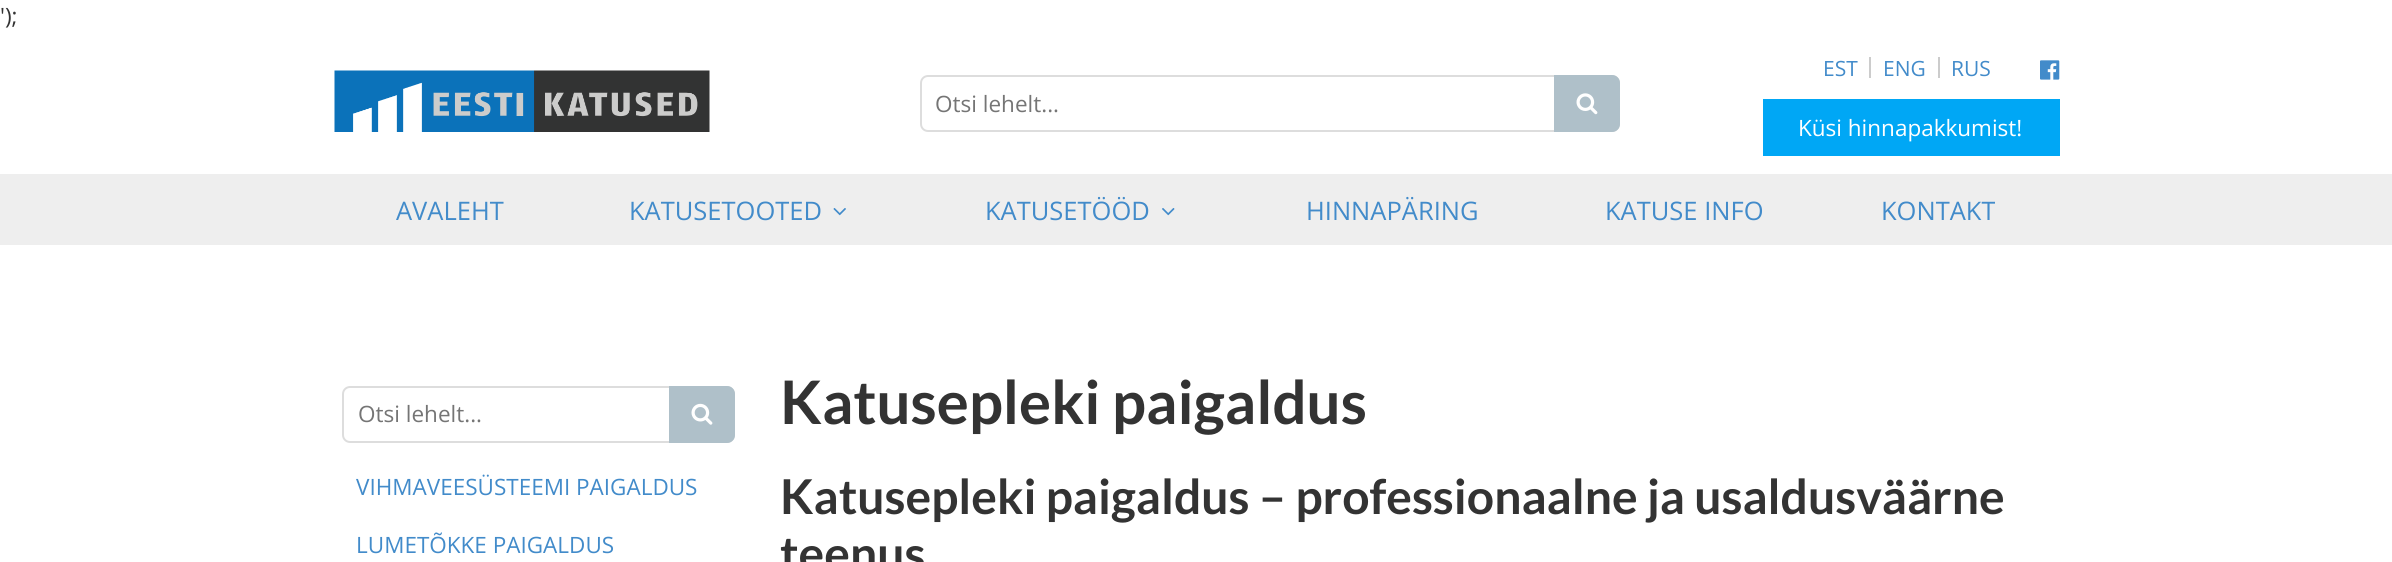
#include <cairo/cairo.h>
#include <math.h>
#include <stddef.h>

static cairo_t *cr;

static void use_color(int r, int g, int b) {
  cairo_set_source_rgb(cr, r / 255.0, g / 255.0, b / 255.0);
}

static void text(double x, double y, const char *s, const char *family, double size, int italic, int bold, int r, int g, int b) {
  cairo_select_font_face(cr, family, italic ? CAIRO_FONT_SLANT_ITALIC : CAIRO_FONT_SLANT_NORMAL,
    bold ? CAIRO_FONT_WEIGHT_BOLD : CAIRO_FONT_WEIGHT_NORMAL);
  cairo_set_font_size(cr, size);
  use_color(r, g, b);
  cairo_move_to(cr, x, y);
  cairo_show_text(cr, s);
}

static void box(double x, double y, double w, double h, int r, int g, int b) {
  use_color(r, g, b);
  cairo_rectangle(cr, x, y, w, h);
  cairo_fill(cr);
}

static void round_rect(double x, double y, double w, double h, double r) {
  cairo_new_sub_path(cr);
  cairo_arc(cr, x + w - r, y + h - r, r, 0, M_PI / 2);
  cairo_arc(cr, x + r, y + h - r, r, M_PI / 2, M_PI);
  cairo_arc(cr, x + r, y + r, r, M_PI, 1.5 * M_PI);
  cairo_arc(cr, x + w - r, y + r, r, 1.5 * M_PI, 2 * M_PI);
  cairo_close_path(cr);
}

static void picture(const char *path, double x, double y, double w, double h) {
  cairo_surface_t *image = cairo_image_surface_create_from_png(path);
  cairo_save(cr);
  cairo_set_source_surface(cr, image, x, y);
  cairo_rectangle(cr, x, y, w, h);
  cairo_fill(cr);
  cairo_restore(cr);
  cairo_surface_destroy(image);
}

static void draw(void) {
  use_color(255, 255, 255);
  cairo_paint(cr);
  picture("img_01.png", 334, 70, 376, 62);
  round_rect(921, 76, 698, 55, 7);
  use_color(221, 221, 221);
  cairo_stroke(cr);
  use_color(175, 192, 201);
  cairo_new_path(cr);
  cairo_move_to(cr, 1554, 75);
  cairo_line_to(cr, 1612, 75);
  cairo_curve_to(cr, 1616.5, 75, 1620, 78.5, 1620, 83);
  cairo_line_to(cr, 1620, 124);
  cairo_curve_to(cr, 1620, 128.5, 1616.5, 132, 1612, 132);
  cairo_line_to(cr, 1554, 132);
  cairo_close_path(cr);
  cairo_fill(cr);
  picture("img_02.png", 1576, 93, 22, 22);
  box(1869, 57, 2, 21, 204, 204, 204);
  box(1938, 57, 2, 21, 204, 204, 204);
  picture("img_03.png", 2040, 60, 20, 20);
  box(1763, 99, 297, 57, 0, 167, 245);
  box(0, 174, 2392, 71, 238, 238, 238);
  picture("img_04.png", 833, 208, 13, 8);
  picture("img_05.png", 1162, 208, 13, 8);
  round_rect(343, 387, 391, 55, 7);
  use_color(221, 221, 221);
  cairo_stroke(cr);
  use_color(175, 192, 201);
  cairo_new_path(cr);
  cairo_move_to(cr, 669, 386);
  cairo_line_to(cr, 727, 386);
  cairo_curve_to(cr, 731.5, 386, 735, 389.5, 735, 394);
  cairo_line_to(cr, 735, 435);
  cairo_curve_to(cr, 735, 439.5, 731.5, 443, 727, 443);
  cairo_line_to(cr, 669, 443);
  cairo_close_path(cr);
  cairo_fill(cr);
  picture("img_06.png", 691, 403, 22, 22);
  text(0, 24, "');", "Open Sans", 22.5, 0, 0, 51, 51, 51);
  text(935, 112, "Otsi lehelt...", "Open Sans", 22.5, 0, 0, 117, 117, 117);
  text(1823, 76, "EST", "Open Sans", 21, 0, 0, 66, 139, 202);
  text(1883, 76, "ENG", "Open Sans", 21, 0, 0, 66, 139, 202);
  text(1951, 76, "RUS", "Open Sans", 21, 0, 0, 66, 139, 202);
  text(1798, 136, "Küsi hinnapakkumist!", "Open Sans", 22.5, 0, 0, 255, 255, 255);
  text(396, 220, "AVALEHT", "Open Sans", 25.5, 0, 0, 66, 139, 202);
  text(629, 220, "KATUSETOOTED", "Open Sans", 25.5, 0, 0, 66, 139, 202);
  text(985, 220, "KATUSETÖÖD", "Open Sans", 25.5, 0, 0, 66, 139, 202);
  text(1306, 220, "HINNAPÄRING", "Open Sans", 25.5, 0, 0, 66, 139, 202);
  text(1605, 220, "KATUSE INFO", "Open Sans", 25.5, 0, 0, 66, 139, 202);
  text(1881, 220, "KONTAKT", "Open Sans", 25.5, 0, 0, 66, 139, 202);
  text(358, 422, "Otsi lehelt...", "Open Sans", 22.5, 0, 0, 117, 117, 117);
  text(356, 495, "VIHMAVEESÜSTEEMI PAIGALDUS", "Open Sans", 22.5, 0, 0, 66, 139, 202);
  text(356, 553, "LUMETÕKKE PAIGALDUS", "Open Sans", 22.5, 0, 0, 66, 139, 202);
  text(780, 424, "Katusepleki paigaldus", "Lato", 60, 0, 1, 51, 51, 51);
  text(780, 514, "Katusepleki paigaldus – professionaalne ja usaldusväärne", "Lato", 48, 0, 1, 51, 51, 51);
  text(780, 571, "teenus", "Lato", 48, 0, 1, 51, 51, 51);
}

int main(void) {
  cairo_surface_t *surface = cairo_image_surface_create(CAIRO_FORMAT_RGB24, 2392, 562);
  cr = cairo_create(surface);
  cairo_font_options_t *options = cairo_font_options_create();
  cairo_font_options_set_hint_metrics(options, CAIRO_HINT_METRICS_OFF);
  cairo_font_options_set_hint_style(options, CAIRO_HINT_STYLE_NONE);
  cairo_set_font_options(cr, options);
  cairo_set_miter_limit(cr, 4);
  draw();
  cairo_surface_write_to_png(surface, "out.png");
  cairo_font_options_destroy(options);
  cairo_destroy(cr);
  cairo_surface_destroy(surface);
  return 0;
}
